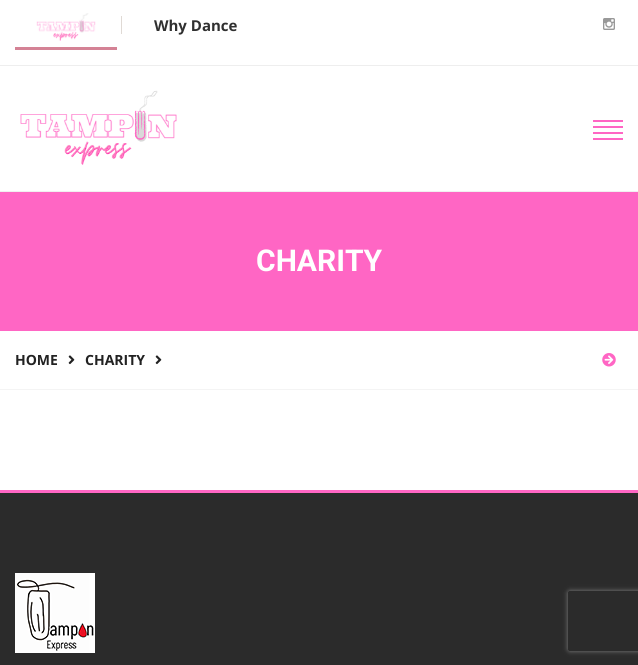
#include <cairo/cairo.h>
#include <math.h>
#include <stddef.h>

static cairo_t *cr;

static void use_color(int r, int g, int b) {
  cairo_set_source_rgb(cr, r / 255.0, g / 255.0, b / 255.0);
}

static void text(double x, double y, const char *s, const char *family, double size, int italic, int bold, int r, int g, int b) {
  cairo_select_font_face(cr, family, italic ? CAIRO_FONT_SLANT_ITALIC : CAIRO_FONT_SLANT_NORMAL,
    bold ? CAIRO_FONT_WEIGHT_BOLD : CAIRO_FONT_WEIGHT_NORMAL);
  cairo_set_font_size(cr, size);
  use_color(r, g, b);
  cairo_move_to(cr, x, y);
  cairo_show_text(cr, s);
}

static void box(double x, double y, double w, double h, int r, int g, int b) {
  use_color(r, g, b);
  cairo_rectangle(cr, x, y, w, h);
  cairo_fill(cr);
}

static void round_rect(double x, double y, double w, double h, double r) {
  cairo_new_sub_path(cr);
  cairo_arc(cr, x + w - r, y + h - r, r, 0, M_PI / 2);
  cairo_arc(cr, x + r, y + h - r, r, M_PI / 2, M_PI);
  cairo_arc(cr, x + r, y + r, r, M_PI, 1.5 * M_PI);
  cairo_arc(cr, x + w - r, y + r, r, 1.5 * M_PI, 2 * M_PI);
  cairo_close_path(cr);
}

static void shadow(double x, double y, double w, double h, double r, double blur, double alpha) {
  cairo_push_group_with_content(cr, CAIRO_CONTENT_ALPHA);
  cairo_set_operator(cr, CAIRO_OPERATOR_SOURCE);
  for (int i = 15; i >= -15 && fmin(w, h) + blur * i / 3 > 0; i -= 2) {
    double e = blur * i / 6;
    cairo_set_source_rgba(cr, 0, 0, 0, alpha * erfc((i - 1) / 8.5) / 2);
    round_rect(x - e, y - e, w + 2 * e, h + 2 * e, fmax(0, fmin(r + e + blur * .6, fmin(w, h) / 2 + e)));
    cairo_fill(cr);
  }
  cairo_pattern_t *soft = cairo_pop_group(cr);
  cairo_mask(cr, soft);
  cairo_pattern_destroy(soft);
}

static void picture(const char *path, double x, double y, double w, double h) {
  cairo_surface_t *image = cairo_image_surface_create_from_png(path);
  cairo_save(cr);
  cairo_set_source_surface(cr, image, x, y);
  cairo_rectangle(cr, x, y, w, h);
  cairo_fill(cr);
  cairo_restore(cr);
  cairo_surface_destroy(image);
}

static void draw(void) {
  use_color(255, 255, 255);
  cairo_paint(cr);
  box(0, 65, 638, 1, 238, 238, 238);
  box(15, 47, 102, 3, 212, 130, 149);
  picture("img_01.png", 36, 13, 60, 28);
  box(121, 16, 1, 18, 224, 218, 213);
  picture("img_02.png", 603, 18, 12, 12);
  box(0, 191, 638, 1, 240, 240, 240);
  picture("img_03.png", 20, 90, 157, 75);
  box(593, 120, 30, 2, 255, 102, 196);
  box(593, 126, 30, 2, 255, 102, 196);
  box(593, 132, 30, 2, 255, 102, 196);
  box(593, 138, 30, 2, 255, 102, 196);
  box(0, 192, 638, 139, 255, 102, 196);
  box(0, 389, 638, 1, 244, 244, 244);
  picture("img_04.png", 68, 355, 7, 10);
  picture("img_04.png", 155, 355, 7, 10);
  picture("img_05.png", 602, 353, 14, 14);
  box(0, 493, 638, 172, 43, 43, 43);
  box(0, 490, 638, 3, 255, 102, 196);
  picture("img_06.png", 15, 573, 80, 80);
  cairo_save(cr);
  cairo_set_fill_rule(cr, CAIRO_FILL_RULE_EVEN_ODD);
  cairo_new_path(cr);
  cairo_move_to(cr, 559, 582);
  cairo_line_to(cr, 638, 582);
  cairo_line_to(cr, 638, 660);
  cairo_line_to(cr, 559, 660);
  cairo_close_path(cr);
  cairo_move_to(cr, 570, 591);
  cairo_line_to(cr, 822, 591);
  cairo_curve_to(cr, 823, 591, 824, 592, 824, 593);
  cairo_line_to(cr, 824, 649);
  cairo_curve_to(cr, 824, 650, 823, 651, 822, 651);
  cairo_line_to(cr, 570, 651);
  cairo_curve_to(cr, 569, 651, 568, 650, 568, 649);
  cairo_line_to(cr, 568, 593);
  cairo_curve_to(cr, 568, 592, 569, 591, 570, 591);
  cairo_close_path(cr);
  cairo_clip(cr);
  use_color(128, 128, 128);
  shadow(568, 591, 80, 60, 2, 2.5, 1);
  cairo_restore(cr);
  text(154, 31, "Why Dance", "Open Sans", 15, 0, 1, 48, 48, 48);
  text(256, 271, "CHARITY", "Roboto", 30, 0, 1, 255, 255, 255);
  text(15, 365, "HOME", "Open Sans", 14, 0, 1, 34, 34, 34);
  text(85, 365, "CHARITY", "Open Sans", 14, 0, 1, 34, 34, 34);
}

int main(void) {
  cairo_surface_t *surface = cairo_image_surface_create(CAIRO_FORMAT_RGB24, 638, 665);
  cr = cairo_create(surface);
  cairo_font_options_t *options = cairo_font_options_create();
  cairo_font_options_set_hint_metrics(options, CAIRO_HINT_METRICS_OFF);
  cairo_font_options_set_hint_style(options, CAIRO_HINT_STYLE_NONE);
  cairo_set_font_options(cr, options);
  cairo_set_miter_limit(cr, 4);
  draw();
  cairo_surface_write_to_png(surface, "out.png");
  cairo_font_options_destroy(options);
  cairo_destroy(cr);
  cairo_surface_destroy(surface);
  return 0;
}
